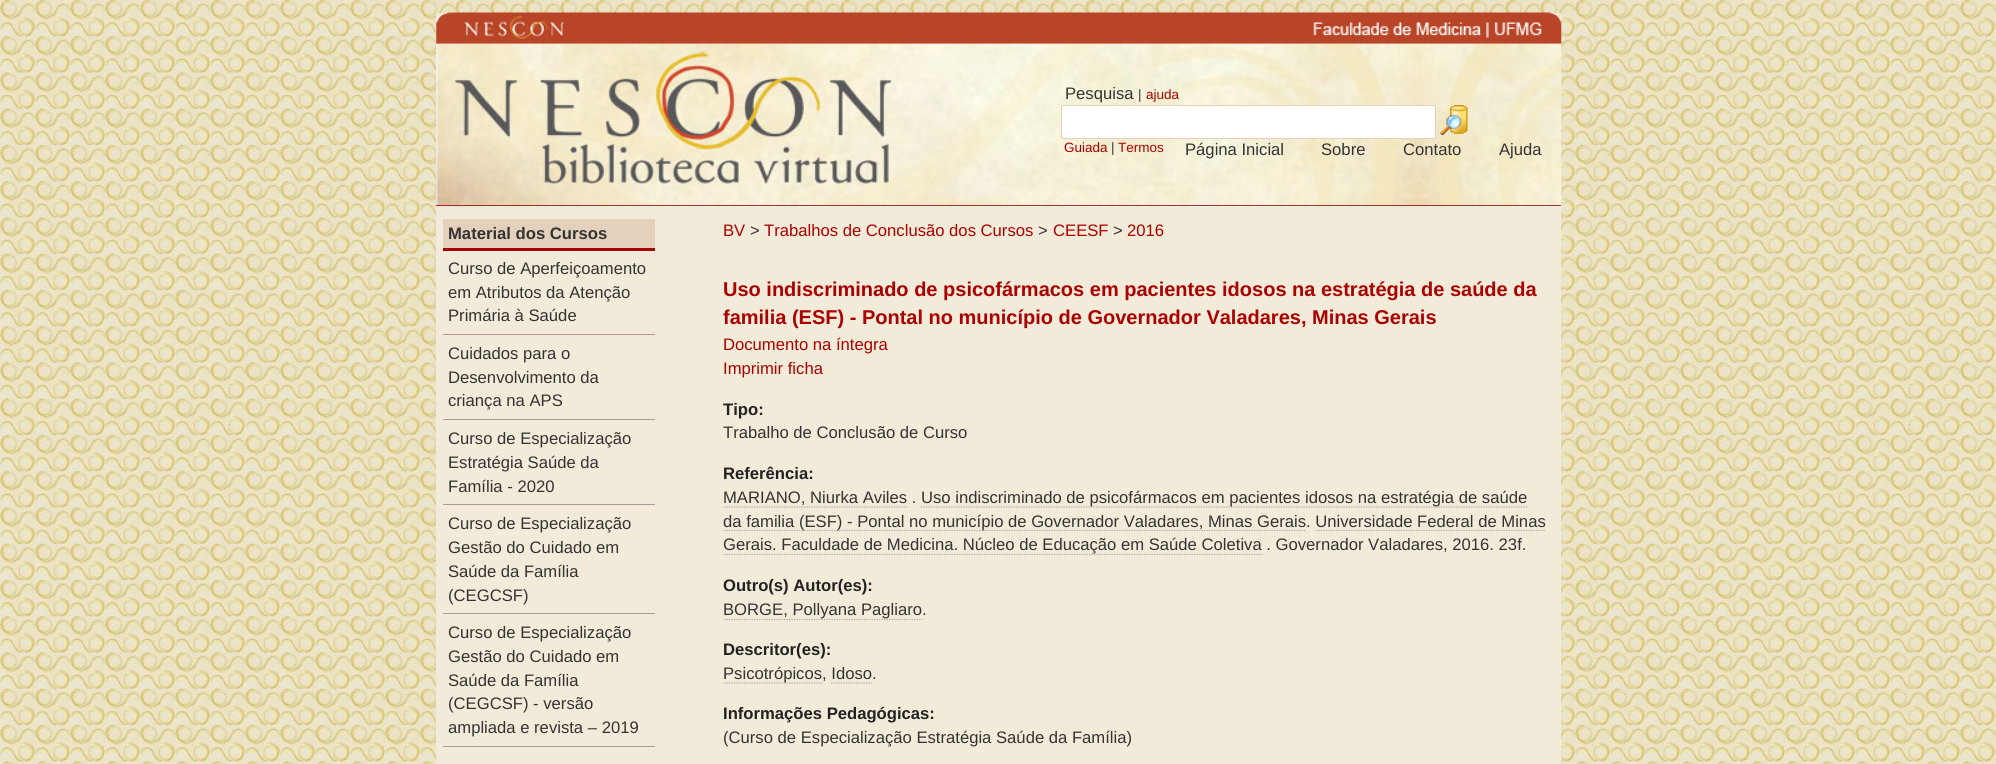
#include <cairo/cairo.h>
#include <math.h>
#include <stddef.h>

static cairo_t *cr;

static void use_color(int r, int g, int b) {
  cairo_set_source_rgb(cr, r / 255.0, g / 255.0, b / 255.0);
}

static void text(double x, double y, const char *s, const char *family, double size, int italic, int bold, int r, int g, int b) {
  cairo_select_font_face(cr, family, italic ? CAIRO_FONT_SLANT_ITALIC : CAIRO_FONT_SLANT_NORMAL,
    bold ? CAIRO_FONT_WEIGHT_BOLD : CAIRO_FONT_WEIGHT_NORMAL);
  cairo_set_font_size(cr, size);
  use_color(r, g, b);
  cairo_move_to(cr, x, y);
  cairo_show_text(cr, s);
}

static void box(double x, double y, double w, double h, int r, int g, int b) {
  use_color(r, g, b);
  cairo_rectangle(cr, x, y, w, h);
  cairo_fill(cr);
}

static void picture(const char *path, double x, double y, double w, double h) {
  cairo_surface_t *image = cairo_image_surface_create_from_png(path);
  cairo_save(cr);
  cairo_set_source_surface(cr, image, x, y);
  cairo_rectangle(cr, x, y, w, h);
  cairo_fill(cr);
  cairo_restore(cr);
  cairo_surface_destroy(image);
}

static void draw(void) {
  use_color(255, 255, 255);
  cairo_paint(cr);
  picture("img_01.png", 0, 0, 1996, 13);
  picture("img_02.png", 0, 13, 1996, 751);
  box(436, 13, 1125, 751, 243, 235, 217);
  picture("img_03.png", 436, 12, 1126, 32);
  picture("img_04.png", 436, 43, 1126, 164);
  box(436, 205, 1125, 1, 153, 51, 51);
  use_color(255, 255, 255);
  cairo_rectangle(cr, 1061.5, 105.5, 374, 33);
  cairo_fill_preserve(cr);
  use_color(228, 209, 187);
  cairo_set_line_width(cr, 1);
  cairo_stroke(cr);
  picture("img_05.png", 1440, 105, 28, 30);
  box(443, 219, 212, 29, 228, 209, 187);
  box(443, 248, 212, 3, 170, 0, 0);
  box(443, 334, 212, 1, 176, 152, 152);
  box(443, 419, 212, 1, 176, 152, 152);
  box(443, 504, 212, 1, 176, 152, 152);
  box(443, 613, 212, 1, 176, 152, 152);
  box(443, 746, 212, 1, 176, 152, 152);
  cairo_new_path(cr);
  cairo_move_to(cr, 724, 507);
  cairo_line_to(cr, 907.5, 507);
  use_color(170, 170, 170);
  cairo_set_line_width(cr, 1.2);
  cairo_set_dash(cr, (double[]){1.25, 1.25}, 2, 0);
  cairo_stroke(cr);
  cairo_new_path(cr);
  cairo_move_to(cr, 921, 507);
  cairo_line_to(cr, 1527.5, 507);
  cairo_stroke(cr);
  cairo_new_path(cr);
  cairo_move_to(cr, 724, 530.5);
  cairo_line_to(cr, 1306, 530.5);
  cairo_stroke(cr);
  cairo_new_path(cr);
  cairo_move_to(cr, 724, 554.5);
  cairo_line_to(cr, 1262.5, 554.5);
  cairo_stroke(cr);
  cairo_new_path(cr);
  cairo_move_to(cr, 724, 619.5);
  cairo_line_to(cr, 922.5, 619.5);
  cairo_stroke(cr);
  cairo_new_path(cr);
  cairo_move_to(cr, 724, 683);
  cairo_line_to(cr, 822.5, 683);
  cairo_stroke(cr);
  text(1065, 99, "Pesquisa", "Liberation Sans", 16.65, 0, 0, 51, 51, 51);
  text(1138, 99, "|", "Liberation Sans", 13.5, 0, 0, 51, 51, 51);
  text(1146, 99, "ajuda", "Liberation Sans", 13.5, 0, 0, 170, 0, 0);
  text(1064, 152, "Guiada", "Liberation Sans", 13.5, 0, 0, 170, 0, 0);
  text(1111, 152, "|", "Liberation Sans", 13.5, 0, 0, 51, 51, 51);
  text(1118, 152, "Termos", "Liberation Sans", 13.5, 0, 0, 170, 0, 0);
  text(1185, 155, "Página Inicial", "Liberation Sans", 16.65, 0, 0, 51, 51, 51);
  text(1321, 155, "Sobre", "Liberation Sans", 16.65, 0, 0, 51, 51, 51);
  text(1403, 155, "Contato", "Liberation Sans", 16.65, 0, 0, 51, 51, 51);
  text(1499, 155, "Ajuda", "Liberation Sans", 16.65, 0, 0, 51, 51, 51);
  text(448, 239, "Material dos Cursos", "Liberation Sans", 16.65, 0, 1, 51, 51, 51);
  text(448, 274, "Curso de Aperfeiçoamento", "Liberation Sans", 16.65, 0, 0, 51, 51, 51);
  text(448, 298, "em Atributos da Atenção", "Liberation Sans", 16.65, 0, 0, 51, 51, 51);
  text(448, 321, "Primária à Saúde", "Liberation Sans", 16.65, 0, 0, 51, 51, 51);
  text(448, 359, "Cuidados para o", "Liberation Sans", 16.65, 0, 0, 51, 51, 51);
  text(448, 383, "Desenvolvimento da", "Liberation Sans", 16.65, 0, 0, 51, 51, 51);
  text(448, 406, "criança na APS", "Liberation Sans", 16.65, 0, 0, 51, 51, 51);
  text(448, 444, "Curso de Especialização", "Liberation Sans", 16.65, 0, 0, 51, 51, 51);
  text(448, 468, "Estratégia Saúde da", "Liberation Sans", 16.65, 0, 0, 51, 51, 51);
  text(448, 492, "Família - 2020", "Liberation Sans", 16.65, 0, 0, 51, 51, 51);
  text(448, 529, "Curso de Especialização", "Liberation Sans", 16.65, 0, 0, 51, 51, 51);
  text(448, 553, "Gestão do Cuidado em", "Liberation Sans", 16.65, 0, 0, 51, 51, 51);
  text(448, 577, "Saúde da Família", "Liberation Sans", 16.65, 0, 0, 51, 51, 51);
  text(448, 601, "(CEGCSF)", "Liberation Sans", 16.65, 0, 0, 51, 51, 51);
  text(448, 638, "Curso de Especialização", "Liberation Sans", 16.65, 0, 0, 51, 51, 51);
  text(448, 662, "Gestão do Cuidado em", "Liberation Sans", 16.65, 0, 0, 51, 51, 51);
  text(448, 686, "Saúde da Família", "Liberation Sans", 16.65, 0, 0, 51, 51, 51);
  text(448, 709, "(CEGCSF) - versão", "Liberation Sans", 16.65, 0, 0, 51, 51, 51);
  text(448, 733, "ampliada e revista – 2019", "Liberation Sans", 16.65, 0, 0, 51, 51, 51);
  text(723, 236, "BV", "Liberation Sans", 16.65, 0, 0, 170, 0, 0);
  text(750, 236, ">", "Liberation Sans", 16.65, 0, 0, 51, 51, 51);
  text(764, 236, "Trabalhos de Conclusão dos Cursos", "Liberation Sans", 16.65, 0, 0, 170, 0, 0);
  text(1038, 236, ">", "Liberation Sans", 16.65, 0, 0, 51, 51, 51);
  text(1053, 236, "CEESF", "Liberation Sans", 16.65, 0, 0, 170, 0, 0);
  text(1113, 236, ">", "Liberation Sans", 16.65, 0, 0, 51, 51, 51);
  text(1127, 236, "2016", "Liberation Sans", 16.65, 0, 0, 170, 0, 0);
  text(723, 296, "Uso indiscriminado de psicofármacos em pacientes idosos na estratégia de saúde da", "Liberation Sans", 20, 0, 1, 170, 0, 0);
  text(723, 324, "familia (ESF) - Pontal no município de Governador Valadares, Minas Gerais", "Liberation Sans", 20, 0, 1, 170, 0, 0);
  text(723, 350, "Documento na íntegra", "Liberation Sans", 16.65, 0, 0, 170, 0, 0);
  text(723, 374, "Imprimir ficha", "Liberation Sans", 16.65, 0, 0, 170, 0, 0);
  text(723, 415, "Tipo:", "Liberation Sans", 16.65, 0, 1, 34, 34, 34);
  text(723, 438, "Trabalho de Conclusão de Curso", "Liberation Sans", 16.65, 0, 0, 51, 51, 51);
  text(723, 479, "Referência:", "Liberation Sans", 16.65, 0, 1, 34, 34, 34);
  text(723, 503, "MARIANO, Niurka Aviles .", "Liberation Sans", 16.65, 0, 0, 51, 51, 51);
  text(921, 503, "Uso indiscriminado de psicofármacos em pacientes idosos na estratégia de saúde", "Liberation Sans", 16.65, 0, 0, 51, 51, 51);
  text(723, 527, "da familia (ESF) - Pontal no município de Governador Valadares, Minas Gerais. Universidade Federal de Minas", "Liberation Sans", 16.65, 0, 0, 51, 51, 51);
  text(723, 550, "Gerais. Faculdade de Medicina. Núcleo de Educação em Saúde Coletiva . Governador Valadares, 2016. 23f.", "Liberation Sans", 16.65, 0, 0, 51, 51, 51);
  cairo_new_path(cr);
  cairo_move_to(cr, 1316, 530.5);
  cairo_line_to(cr, 1546, 530.5);
  use_color(170, 170, 170);
  cairo_stroke(cr);
  text(723, 591, "Outro(s) Autor(es):", "Liberation Sans", 16.65, 0, 1, 34, 34, 34);
  text(723, 615, "BORGE, Pollyana Pagliaro.", "Liberation Sans", 16.65, 0, 0, 51, 51, 51);
  text(723, 655, "Descritor(es):", "Liberation Sans", 16.65, 0, 1, 34, 34, 34);
  text(723, 679, "Psicotrópicos, Idoso.", "Liberation Sans", 16.65, 0, 0, 51, 51, 51);
  cairo_new_path(cr);
  cairo_move_to(cr, 831, 683);
  cairo_line_to(cr, 872.5, 683);
  use_color(170, 170, 170);
  cairo_stroke(cr);
  text(723, 719, "Informações Pedagógicas:", "Liberation Sans", 16.65, 0, 1, 34, 34, 34);
  text(723, 743, "(Curso de Especialização Estratégia Saúde da Família)", "Liberation Sans", 16.65, 0, 0, 51, 51, 51);
}

int main(void) {
  cairo_surface_t *surface = cairo_image_surface_create(CAIRO_FORMAT_RGB24, 1996, 764);
  cr = cairo_create(surface);
  cairo_font_options_t *options = cairo_font_options_create();
  cairo_font_options_set_hint_metrics(options, CAIRO_HINT_METRICS_OFF);
  cairo_font_options_set_hint_style(options, CAIRO_HINT_STYLE_NONE);
  cairo_set_font_options(cr, options);
  cairo_set_miter_limit(cr, 4);
  draw();
  cairo_surface_write_to_png(surface, "out.png");
  cairo_font_options_destroy(options);
  cairo_destroy(cr);
  cairo_surface_destroy(surface);
  return 0;
}
